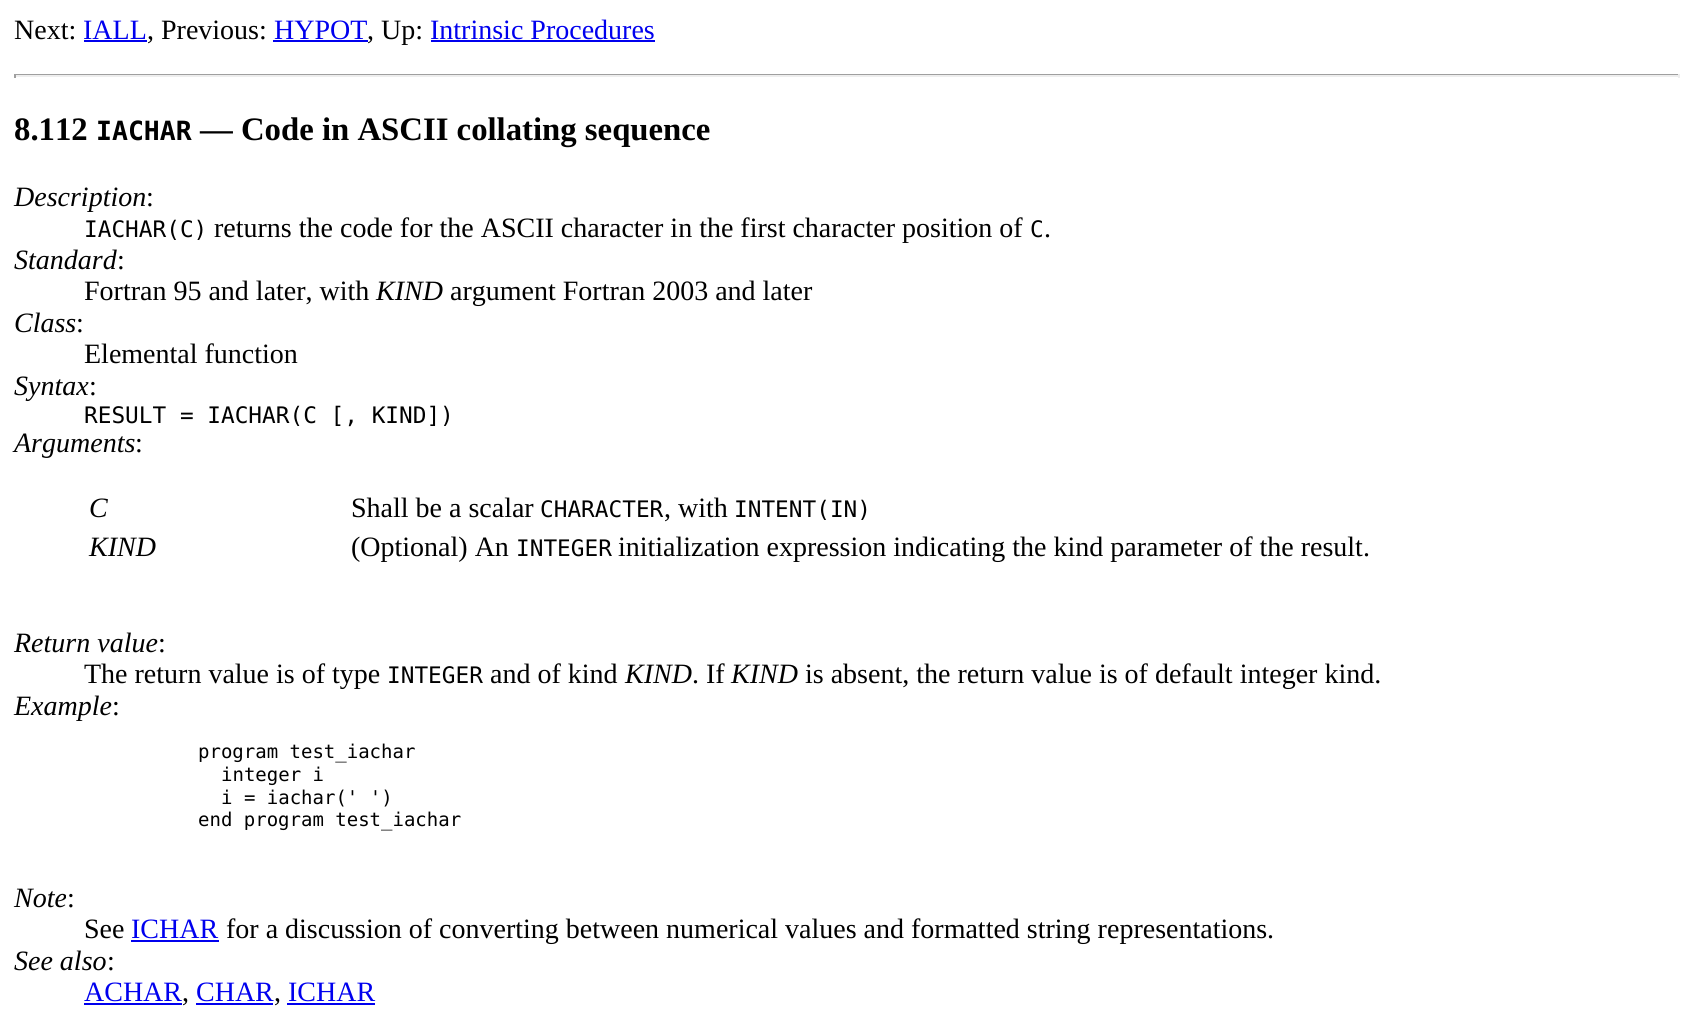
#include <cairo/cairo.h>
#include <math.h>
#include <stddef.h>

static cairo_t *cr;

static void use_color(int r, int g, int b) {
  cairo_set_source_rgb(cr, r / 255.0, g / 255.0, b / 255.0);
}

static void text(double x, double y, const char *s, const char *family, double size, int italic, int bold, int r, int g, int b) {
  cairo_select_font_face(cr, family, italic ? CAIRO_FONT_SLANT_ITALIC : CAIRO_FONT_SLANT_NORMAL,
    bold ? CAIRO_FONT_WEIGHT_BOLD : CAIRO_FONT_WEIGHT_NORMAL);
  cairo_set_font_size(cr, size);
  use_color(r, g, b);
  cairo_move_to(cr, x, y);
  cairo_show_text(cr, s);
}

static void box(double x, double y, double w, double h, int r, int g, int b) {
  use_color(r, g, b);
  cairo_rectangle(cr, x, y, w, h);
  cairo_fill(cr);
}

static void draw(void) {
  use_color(255, 255, 255);
  cairo_paint(cr);
  box(84, 40, 63, 2, 0, 0, 238);
  box(273, 40, 95, 2, 0, 0, 238);
  box(431, 40, 224, 2, 0, 0, 238);
  box(14, 74, 1666, 1, 159, 159, 159);
  box(1678, 74, 2, 4, 238, 238, 238);
  box(14, 75, 1666, 2, 238, 238, 238);
  box(14, 74, 2, 4, 159, 159, 159);
  box(131, 940, 88, 2, 0, 0, 238);
  box(84, 1003, 98, 2, 0, 0, 238);
  box(196, 1003, 77, 2, 0, 0, 238);
  box(287, 1003, 88, 2, 0, 0, 238);
  text(14, 39, "Next:", "Liberation Serif", 28, 0, 0, 0, 0, 0);
  text(83, 39, "IALL", "Liberation Serif", 28, 0, 0, 0, 0, 238);
  text(147, 39, ", Previous:", "Liberation Serif", 28, 0, 0, 0, 0, 0);
  text(274, 39, "HYPOT", "Liberation Serif", 28, 0, 0, 0, 0, 238);
  text(367, 39, ", Up:", "Liberation Serif", 28, 0, 0, 0, 0, 0);
  text(430, 39, "Intrinsic Procedures", "Liberation Serif", 28, 0, 0, 0, 0, 238);
  text(14, 140, "8.112", "Liberation Serif", 32.75, 0, 1, 0, 0, 0);
  text(96, 140, "IACHAR", "DejaVu Sans Mono", 26.5, 0, 1, 0, 0, 0);
  text(200, 140, "— Code in ASCII collating sequence", "Liberation Serif", 32.75, 0, 1, 0, 0, 0);
  text(14, 206, "Description", "Liberation Serif", 28, 1, 0, 0, 0, 0);
  text(146, 206, ":", "Liberation Serif", 28, 0, 0, 0, 0, 0);
  text(84, 237, "IACHAR(C)", "DejaVu Sans Mono", 22.75, 0, 0, 0, 0, 0);
  text(214, 237, "returns the code for the ASCII character in the first character position of", "Liberation Serif", 28, 0, 0, 0, 0, 0);
  text(1030, 237, "C", "DejaVu Sans Mono", 22.75, 0, 0, 0, 0, 0);
  text(1044, 237, ".", "Liberation Serif", 28, 0, 0, 0, 0, 0);
  text(14, 269, "Standard", "Liberation Serif", 28, 1, 0, 0, 0, 0);
  text(117, 269, ":", "Liberation Serif", 28, 0, 0, 0, 0, 0);
  text(84, 300, "Fortran 95 and later, with", "Liberation Serif", 28, 0, 0, 0, 0, 0);
  text(376, 300, "KIND", "Liberation Serif", 28, 1, 0, 0, 0, 0);
  text(450, 300, "argument Fortran 2003 and later", "Liberation Serif", 28, 0, 0, 0, 0, 0);
  text(14, 332, "Class", "Liberation Serif", 28, 1, 0, 0, 0, 0);
  text(76, 332, ":", "Liberation Serif", 28, 0, 0, 0, 0, 0);
  text(84, 363, "Elemental function", "Liberation Serif", 28, 0, 0, 0, 0, 0);
  text(14, 395, "Syntax", "Liberation Serif", 28, 1, 0, 0, 0, 0);
  text(89, 395, ":", "Liberation Serif", 28, 0, 0, 0, 0, 0);
  text(84, 423, "RESULT = IACHAR(C [, KIND])", "DejaVu Sans Mono", 22.75, 0, 0, 0, 0, 0);
  text(14, 452, "Arguments", "Liberation Serif", 28, 1, 0, 0, 0, 0);
  text(135, 452, ":", "Liberation Serif", 28, 0, 0, 0, 0, 0);
  text(89, 517, "C", "Liberation Serif", 28, 1, 0, 0, 0, 0);
  text(351, 517, "Shall be a scalar", "Liberation Serif", 28, 0, 0, 0, 0, 0);
  text(540, 517, "CHARACTER", "DejaVu Sans Mono", 22.75, 0, 0, 0, 0, 0);
  text(664, 517, ", with", "Liberation Serif", 28, 0, 0, 0, 0, 0);
  text(734, 517, "INTENT(IN)", "DejaVu Sans Mono", 22.75, 0, 0, 0, 0, 0);
  text(89, 556, "KIND", "Liberation Serif", 28, 1, 0, 0, 0, 0);
  text(351, 556, "(Optional) An", "Liberation Serif", 28, 0, 0, 0, 0, 0);
  text(516, 556, "INTEGER", "DejaVu Sans Mono", 22.75, 0, 0, 0, 0, 0);
  text(618, 556, "initialization expression indicating the kind parameter of the result.", "Liberation Serif", 28, 0, 0, 0, 0, 0);
  text(14, 652, "Return value", "Liberation Serif", 28, 1, 0, 0, 0, 0);
  text(158, 652, ":", "Liberation Serif", 28, 0, 0, 0, 0, 0);
  text(84, 683, "The return value is of type", "Liberation Serif", 28, 0, 0, 0, 0, 0);
  text(387, 683, "INTEGER", "DejaVu Sans Mono", 22.75, 0, 0, 0, 0, 0);
  text(490, 683, "and of kind", "Liberation Serif", 28, 0, 0, 0, 0, 0);
  text(625, 683, "KIND", "Liberation Serif", 28, 1, 0, 0, 0, 0);
  text(692, 683, ". If", "Liberation Serif", 28, 0, 0, 0, 0, 0);
  text(731, 683, "KIND", "Liberation Serif", 28, 1, 0, 0, 0, 0);
  text(805, 683, "is absent, the return value is of default integer kind.", "Liberation Serif", 28, 0, 0, 0, 0, 0);
  text(14, 715, "Example", "Liberation Serif", 28, 1, 0, 0, 0, 0);
  text(112, 715, ":", "Liberation Serif", 28, 0, 0, 0, 0, 0);
  text(198, 758, "program test_iachar", "DejaVu Sans Mono", 19, 0, 0, 0, 0, 0);
  text(221, 781, "integer i", "DejaVu Sans Mono", 19, 0, 0, 0, 0, 0);
  text(221, 804, "i = iachar(' ')", "DejaVu Sans Mono", 19, 0, 0, 0, 0, 0);
  text(198, 826, "end program test_iachar", "DejaVu Sans Mono", 19, 0, 0, 0, 0, 0);
  text(14, 907, "Note", "Liberation Serif", 28, 1, 0, 0, 0, 0);
  text(67, 907, ":", "Liberation Serif", 28, 0, 0, 0, 0, 0);
  text(84, 938, "See", "Liberation Serif", 28, 0, 0, 0, 0, 0);
  text(131, 938, "ICHAR", "Liberation Serif", 28, 0, 0, 0, 0, 238);
  text(226, 938, "for a discussion of converting between numerical values and formatted string representations.", "Liberation Serif", 28, 0, 0, 0, 0, 0);
  text(14, 970, "See also", "Liberation Serif", 28, 1, 0, 0, 0, 0);
  text(107, 970, ":", "Liberation Serif", 28, 0, 0, 0, 0, 0);
  text(84, 1001, "ACHAR", "Liberation Serif", 28, 0, 0, 0, 0, 238);
  text(182, 1001, ",", "Liberation Serif", 28, 0, 0, 0, 0, 0);
  text(196, 1001, "CHAR", "Liberation Serif", 28, 0, 0, 0, 0, 238);
  text(274, 1001, ",", "Liberation Serif", 28, 0, 0, 0, 0, 0);
  text(288, 1001, "ICHAR", "Liberation Serif", 28, 0, 0, 0, 0, 238);
}

int main(void) {
  cairo_surface_t *surface = cairo_image_surface_create(CAIRO_FORMAT_RGB24, 1694, 1035);
  cr = cairo_create(surface);
  cairo_font_options_t *options = cairo_font_options_create();
  cairo_font_options_set_hint_metrics(options, CAIRO_HINT_METRICS_OFF);
  cairo_font_options_set_hint_style(options, CAIRO_HINT_STYLE_NONE);
  cairo_set_font_options(cr, options);
  cairo_set_miter_limit(cr, 4);
  draw();
  cairo_surface_write_to_png(surface, "out.png");
  cairo_font_options_destroy(options);
  cairo_destroy(cr);
  cairo_surface_destroy(surface);
  return 0;
}
